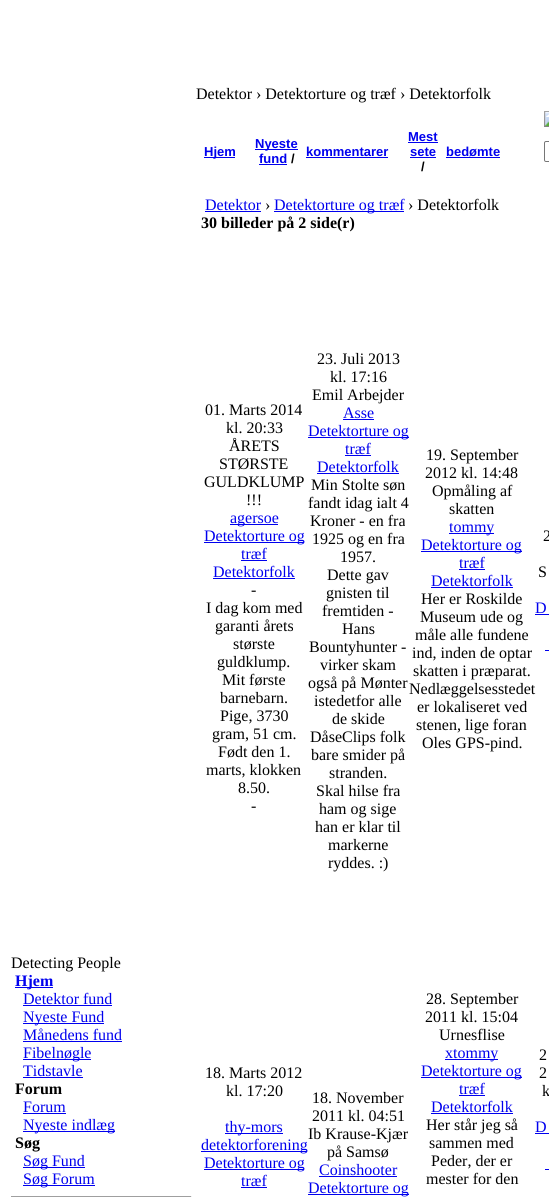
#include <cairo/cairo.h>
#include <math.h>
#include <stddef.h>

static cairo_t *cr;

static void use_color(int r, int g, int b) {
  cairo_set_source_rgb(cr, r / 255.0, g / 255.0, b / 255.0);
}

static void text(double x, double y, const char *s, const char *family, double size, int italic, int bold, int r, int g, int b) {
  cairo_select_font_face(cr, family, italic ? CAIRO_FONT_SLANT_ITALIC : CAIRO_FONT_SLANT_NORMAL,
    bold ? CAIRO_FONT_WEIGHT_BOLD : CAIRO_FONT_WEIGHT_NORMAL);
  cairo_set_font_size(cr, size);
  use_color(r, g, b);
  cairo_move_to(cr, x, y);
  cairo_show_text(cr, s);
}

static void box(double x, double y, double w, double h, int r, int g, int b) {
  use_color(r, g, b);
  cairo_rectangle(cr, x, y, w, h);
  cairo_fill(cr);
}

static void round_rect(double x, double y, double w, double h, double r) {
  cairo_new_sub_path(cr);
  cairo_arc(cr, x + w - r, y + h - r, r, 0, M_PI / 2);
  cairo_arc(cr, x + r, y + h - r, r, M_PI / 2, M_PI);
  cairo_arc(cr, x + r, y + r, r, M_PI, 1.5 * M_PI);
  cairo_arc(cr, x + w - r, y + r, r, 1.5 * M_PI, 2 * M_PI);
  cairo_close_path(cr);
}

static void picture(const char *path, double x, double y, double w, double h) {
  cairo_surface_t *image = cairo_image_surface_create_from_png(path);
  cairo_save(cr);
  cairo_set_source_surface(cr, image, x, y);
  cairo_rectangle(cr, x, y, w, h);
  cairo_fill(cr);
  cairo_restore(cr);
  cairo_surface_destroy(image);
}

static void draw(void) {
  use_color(255, 255, 255);
  cairo_paint(cr);
  box(15, 987, 38, 1, 0, 0, 238);
  box(23, 1005, 89, 1, 0, 0, 238);
  box(23, 1023, 81, 1, 0, 0, 238);
  box(23, 1041, 99, 1, 0, 0, 238);
  box(23, 1059, 68, 1, 0, 0, 238);
  box(23, 1077, 60, 1, 0, 0, 238);
  box(23, 1113, 43, 1, 0, 0, 238);
  box(23, 1131, 92, 1, 0, 0, 238);
  box(23, 1167, 62, 1, 0, 0, 238);
  box(23, 1185, 72, 1, 0, 0, 238);
  box(11, 1196, 181, 1, 159, 159, 159);
  box(191, 1196, 1, 1, 238, 238, 238);
  box(204, 157, 31, 1, 0, 0, 238);
  box(255, 149, 43, 1, 0, 0, 238);
  box(259, 164, 28, 1, 0, 0, 238);
  box(306, 157, 82, 1, 0, 0, 238);
  box(408, 142, 30, 1, 0, 0, 238);
  box(410, 157, 26, 1, 0, 0, 238);
  box(446, 157, 54, 1, 0, 0, 238);
  picture("img_01.png", 544, 111, 5, 16);
  round_rect(544.5, 141.5, 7, 20, 1.5);
  use_color(118, 118, 118);
  cairo_set_line_width(cr, 1);
  cairo_stroke(cr);
  box(205, 211, 56, 1, 0, 0, 238);
  box(274, 211, 130, 1, 0, 0, 238);
  box(230, 524, 48, 1, 0, 0, 238);
  box(204, 542, 100, 1, 0, 0, 238);
  box(241, 560, 26, 1, 0, 0, 238);
  box(213, 578, 82, 1, 0, 0, 238);
  box(343, 419, 31, 1, 0, 0, 238);
  box(308, 437, 101, 1, 0, 0, 238);
  box(345, 455, 26, 1, 0, 0, 238);
  box(317, 473, 82, 1, 0, 0, 238);
  box(449, 533, 45, 1, 0, 0, 238);
  box(421, 551, 101, 1, 0, 0, 238);
  box(459, 569, 26, 1, 0, 0, 238);
  box(431, 587, 82, 1, 0, 0, 238);
  box(535, 614, 14, 1, 0, 0, 238);
  box(545, 650, 4, 1, 0, 0, 238);
  box(225, 1133, 58, 1, 0, 0, 238);
  box(201, 1151, 106, 1, 0, 0, 238);
  box(204, 1169, 100, 1, 0, 0, 238);
  box(241, 1187, 26, 1, 0, 0, 238);
  box(319, 1176, 78, 1, 0, 0, 238);
  box(308, 1194, 101, 1, 0, 0, 238);
  box(445, 1059, 53, 1, 0, 0, 238);
  box(421, 1077, 101, 1, 0, 0, 238);
  box(459, 1095, 26, 1, 0, 0, 238);
  box(431, 1113, 82, 1, 0, 0, 238);
  box(535, 1133, 14, 1, 0, 0, 238);
  box(545, 1169, 4, 1, 0, 0, 238);
  text(11, 968, "Detecting People", "Liberation Serif", 16, 0, 0, 0, 0, 0);
  text(15, 986, "Hjem", "Liberation Serif", 16, 0, 1, 0, 0, 238);
  text(23, 1004, "Detektor fund", "Liberation Serif", 16, 0, 0, 0, 0, 238);
  text(23, 1022, "Nyeste Fund", "Liberation Serif", 16, 0, 0, 0, 0, 238);
  text(23, 1040, "Månedens fund", "Liberation Serif", 16, 0, 0, 0, 0, 238);
  text(23, 1058, "Fibelnøgle", "Liberation Serif", 16, 0, 0, 0, 0, 238);
  text(23, 1076, "Tidstavle", "Liberation Serif", 16, 0, 0, 0, 0, 238);
  text(15, 1094, "Forum", "Liberation Serif", 16, 0, 1, 0, 0, 0);
  text(23, 1112, "Forum", "Liberation Serif", 16, 0, 0, 0, 0, 238);
  text(23, 1130, "Nyeste indlæg", "Liberation Serif", 16, 0, 0, 0, 0, 238);
  text(15, 1148, "Søg", "Liberation Serif", 16, 0, 1, 0, 0, 0);
  text(23, 1166, "Søg Fund", "Liberation Serif", 16, 0, 0, 0, 0, 238);
  text(23, 1184, "Søg Forum", "Liberation Serif", 16, 0, 0, 0, 0, 238);
  text(196, 99, "Detektor › Detektorture og træf › Detektorfolk", "Liberation Serif", 16, 0, 0, 0, 0, 0);
  text(204, 156, "Hjem", "Liberation Sans", 13, 0, 1, 0, 0, 238);
  text(255, 148, "Nyeste", "Liberation Sans", 13, 0, 1, 0, 0, 238);
  text(259, 163, "fund", "Liberation Sans", 13, 0, 1, 0, 0, 238);
  text(291, 163, "/", "Liberation Sans", 13, 0, 1, 0, 0, 0);
  text(306, 156, "kommentarer", "Liberation Sans", 13, 0, 1, 0, 0, 238);
  text(408, 141, "Mest", "Liberation Sans", 13, 0, 1, 0, 0, 238);
  text(410, 156, "sete", "Liberation Sans", 13, 0, 1, 0, 0, 238);
  text(421, 171, "/", "Liberation Sans", 13, 0, 1, 0, 0, 0);
  text(446, 156, "bedømte", "Liberation Sans", 13, 0, 1, 0, 0, 238);
  text(205, 210, "Detektor", "Liberation Serif", 16, 0, 0, 0, 0, 238);
  text(265, 210, "›", "Liberation Serif", 16, 0, 0, 0, 0, 0);
  text(274, 210, "Detektorture og træf", "Liberation Serif", 16, 0, 0, 0, 0, 238);
  text(408, 210, "› Detektorfolk", "Liberation Serif", 16, 0, 0, 0, 0, 0);
  text(201, 228, "30 billeder på 2 side(r)", "Liberation Serif", 16, 0, 1, 0, 0, 0);
  text(205, 415, "01. Marts 2014", "Liberation Serif", 16, 0, 0, 0, 0, 0);
  text(226, 433, "kl. 20:33", "Liberation Serif", 16, 0, 0, 0, 0, 0);
  text(229, 451, "ÅRETS", "Liberation Serif", 16, 0, 0, 0, 0, 0);
  text(219, 469, "STØRSTE", "Liberation Serif", 16, 0, 0, 0, 0, 0);
  text(204, 487, "GULDKLUMP", "Liberation Serif", 16, 0, 0, 0, 0, 0);
  text(246, 505, "!!!", "Liberation Serif", 16, 0, 0, 0, 0, 0);
  text(230, 523, "agersoe", "Liberation Serif", 16, 0, 0, 0, 0, 238);
  text(204, 541, "Detektorture og", "Liberation Serif", 16, 0, 0, 0, 0, 238);
  text(241, 559, "træf", "Liberation Serif", 16, 0, 0, 0, 0, 238);
  text(213, 577, "Detektorfolk", "Liberation Serif", 16, 0, 0, 0, 0, 238);
  text(251, 595, "-", "Liberation Serif", 16, 0, 0, 0, 0, 0);
  text(206, 613, "I dag kom med", "Liberation Serif", 16, 0, 0, 0, 0, 0);
  text(215, 631, "garanti årets", "Liberation Serif", 16, 0, 0, 0, 0, 0);
  text(233, 649, "største", "Liberation Serif", 16, 0, 0, 0, 0, 0);
  text(217, 667, "guldklump.", "Liberation Serif", 16, 0, 0, 0, 0, 0);
  text(222, 685, "Mit første", "Liberation Serif", 16, 0, 0, 0, 0, 0);
  text(220, 703, "barnebarn.", "Liberation Serif", 16, 0, 0, 0, 0, 0);
  text(220, 721, "Pige, 3730", "Liberation Serif", 16, 0, 0, 0, 0, 0);
  text(212, 739, "gram, 51 cm.", "Liberation Serif", 16, 0, 0, 0, 0, 0);
  text(218, 757, "Født den 1.", "Liberation Serif", 16, 0, 0, 0, 0, 0);
  text(206, 775, "marts, klokken", "Liberation Serif", 16, 0, 0, 0, 0, 0);
  text(238, 793, "8.50.", "Liberation Serif", 16, 0, 0, 0, 0, 0);
  text(251, 811, "-", "Liberation Serif", 16, 0, 0, 0, 0, 0);
  text(317, 364, "23. Juli 2013", "Liberation Serif", 16, 0, 0, 0, 0, 0);
  text(330, 382, "kl. 17:16", "Liberation Serif", 16, 0, 0, 0, 0, 0);
  text(312, 400, "Emil Arbejder", "Liberation Serif", 16, 0, 0, 0, 0, 0);
  text(343, 418, "Asse", "Liberation Serif", 16, 0, 0, 0, 0, 238);
  text(308, 436, "Detektorture og", "Liberation Serif", 16, 0, 0, 0, 0, 238);
  text(345, 454, "træf", "Liberation Serif", 16, 0, 0, 0, 0, 238);
  text(317, 472, "Detektorfolk", "Liberation Serif", 16, 0, 0, 0, 0, 238);
  text(311, 490, "Min Stolte søn", "Liberation Serif", 16, 0, 0, 0, 0, 0);
  text(308, 508, "fandt idag ialt 4", "Liberation Serif", 16, 0, 0, 0, 0, 0);
  text(310, 526, "Kroner - en fra", "Liberation Serif", 16, 0, 0, 0, 0, 0);
  text(312, 544, "1925 og en fra", "Liberation Serif", 16, 0, 0, 0, 0, 0);
  text(340, 562, "1957.", "Liberation Serif", 16, 0, 0, 0, 0, 0);
  text(327, 580, "Dette gav", "Liberation Serif", 16, 0, 0, 0, 0, 0);
  text(326, 598, "gnisten til", "Liberation Serif", 16, 0, 0, 0, 0, 0);
  text(322, 616, "fremtiden -", "Liberation Serif", 16, 0, 0, 0, 0, 0);
  text(342, 634, "Hans", "Liberation Serif", 16, 0, 0, 0, 0, 0);
  text(309, 652, "Bountyhunter -", "Liberation Serif", 16, 0, 0, 0, 0, 0);
  text(320, 670, "virker skam", "Liberation Serif", 16, 0, 0, 0, 0, 0);
  text(308, 688, "også på Mønter", "Liberation Serif", 16, 0, 0, 0, 0, 0);
  text(314, 706, "istedetfor alle", "Liberation Serif", 16, 0, 0, 0, 0, 0);
  text(332, 724, "de skide", "Liberation Serif", 16, 0, 0, 0, 0, 0);
  text(310, 742, "DåseClips folk", "Liberation Serif", 16, 0, 0, 0, 0, 0);
  text(311, 760, "bare smider på", "Liberation Serif", 16, 0, 0, 0, 0, 0);
  text(329, 778, "stranden.", "Liberation Serif", 16, 0, 0, 0, 0, 0);
  text(316, 796, "Skal hilse fra", "Liberation Serif", 16, 0, 0, 0, 0, 0);
  text(319, 814, "ham og sige", "Liberation Serif", 16, 0, 0, 0, 0, 0);
  text(315, 832, "han er klar til", "Liberation Serif", 16, 0, 0, 0, 0, 0);
  text(328, 850, "markerne", "Liberation Serif", 16, 0, 0, 0, 0, 0);
  text(328, 868, "ryddes. :)", "Liberation Serif", 16, 0, 0, 0, 0, 0);
  text(426, 460, "19. September", "Liberation Serif", 16, 0, 0, 0, 0, 0);
  text(425, 478, "2012 kl. 14:48", "Liberation Serif", 16, 0, 0, 0, 0, 0);
  text(432, 496, "Opmåling af", "Liberation Serif", 16, 0, 0, 0, 0, 0);
  text(449, 514, "skatten", "Liberation Serif", 16, 0, 0, 0, 0, 0);
  text(449, 532, "tommy", "Liberation Serif", 16, 0, 0, 0, 0, 238);
  text(421, 550, "Detektorture og", "Liberation Serif", 16, 0, 0, 0, 0, 238);
  text(459, 568, "træf", "Liberation Serif", 16, 0, 0, 0, 0, 238);
  text(431, 586, "Detektorfolk", "Liberation Serif", 16, 0, 0, 0, 0, 238);
  text(421, 604, "Her er Roskilde", "Liberation Serif", 16, 0, 0, 0, 0, 0);
  text(420, 622, "Museum ude og", "Liberation Serif", 16, 0, 0, 0, 0, 0);
  text(415, 640, "måle alle fundene", "Liberation Serif", 16, 0, 0, 0, 0, 0);
  text(412, 658, "ind, inden de optar", "Liberation Serif", 16, 0, 0, 0, 0, 0);
  text(413, 676, "skatten i præparat.", "Liberation Serif", 16, 0, 0, 0, 0, 0);
  text(409, 694, "Nedlæggelsesstedet", "Liberation Serif", 16, 0, 0, 0, 0, 0);
  text(417, 712, "er lokaliseret ved", "Liberation Serif", 16, 0, 0, 0, 0, 0);
  text(416, 730, "stenen, lige foran", "Liberation Serif", 16, 0, 0, 0, 0, 0);
  text(422, 748, "Oles GPS-pind.", "Liberation Serif", 16, 0, 0, 0, 0, 0);
  text(543, 541, "2", "Liberation Serif", 16, 0, 0, 0, 0, 0);
  text(538, 577, "S", "Liberation Serif", 16, 0, 0, 0, 0, 0);
  text(535, 613, "D", "Liberation Serif", 16, 0, 0, 0, 0, 238);
  text(205, 1078, "18. Marts 2012", "Liberation Serif", 16, 0, 0, 0, 0, 0);
  text(226, 1096, "kl. 17:20", "Liberation Serif", 16, 0, 0, 0, 0, 0);
  text(225, 1132, "thy-mors", "Liberation Serif", 16, 0, 0, 0, 0, 238);
  text(201, 1150, "detektorforening", "Liberation Serif", 16, 0, 0, 0, 0, 238);
  text(204, 1168, "Detektorture og", "Liberation Serif", 16, 0, 0, 0, 0, 238);
  text(241, 1186, "træf", "Liberation Serif", 16, 0, 0, 0, 0, 238);
  text(312, 1103, "18. November", "Liberation Serif", 16, 0, 0, 0, 0, 0);
  text(312, 1121, "2011 kl. 04:51", "Liberation Serif", 16, 0, 0, 0, 0, 0);
  text(308, 1139, "Ib Krause-Kjær", "Liberation Serif", 16, 0, 0, 0, 0, 0);
  text(327, 1157, "på Samsø", "Liberation Serif", 16, 0, 0, 0, 0, 0);
  text(319, 1175, "Coinshooter", "Liberation Serif", 16, 0, 0, 0, 0, 238);
  text(308, 1193, "Detektorture og", "Liberation Serif", 16, 0, 0, 0, 0, 238);
  text(426, 1004, "28. September", "Liberation Serif", 16, 0, 0, 0, 0, 0);
  text(425, 1022, "2011 kl. 15:04", "Liberation Serif", 16, 0, 0, 0, 0, 0);
  text(439, 1040, "Urnesflise", "Liberation Serif", 16, 0, 0, 0, 0, 0);
  text(445, 1058, "xtommy", "Liberation Serif", 16, 0, 0, 0, 0, 238);
  text(421, 1076, "Detektorture og", "Liberation Serif", 16, 0, 0, 0, 0, 238);
  text(459, 1094, "træf", "Liberation Serif", 16, 0, 0, 0, 0, 238);
  text(431, 1112, "Detektorfolk", "Liberation Serif", 16, 0, 0, 0, 0, 238);
  text(426, 1130, "Her står jeg så", "Liberation Serif", 16, 0, 0, 0, 0, 0);
  text(429, 1148, "sammen med", "Liberation Serif", 16, 0, 0, 0, 0, 0);
  text(431, 1166, "Peder, der er", "Liberation Serif", 16, 0, 0, 0, 0, 0);
  text(426, 1184, "mester for den", "Liberation Serif", 16, 0, 0, 0, 0, 0);
  text(539, 1060, "2", "Liberation Serif", 16, 0, 0, 0, 0, 0);
  text(539, 1078, "2", "Liberation Serif", 16, 0, 0, 0, 0, 0);
  text(542, 1096, "k", "Liberation Serif", 16, 0, 0, 0, 0, 0);
  text(535, 1132, "D", "Liberation Serif", 16, 0, 0, 0, 0, 238);
}

int main(void) {
  cairo_surface_t *surface = cairo_image_surface_create(CAIRO_FORMAT_RGB24, 549, 1197);
  cr = cairo_create(surface);
  cairo_font_options_t *options = cairo_font_options_create();
  cairo_font_options_set_hint_metrics(options, CAIRO_HINT_METRICS_OFF);
  cairo_font_options_set_hint_style(options, CAIRO_HINT_STYLE_NONE);
  cairo_set_font_options(cr, options);
  cairo_set_miter_limit(cr, 4);
  draw();
  cairo_surface_write_to_png(surface, "out.png");
  cairo_font_options_destroy(options);
  cairo_destroy(cr);
  cairo_surface_destroy(surface);
  return 0;
}
